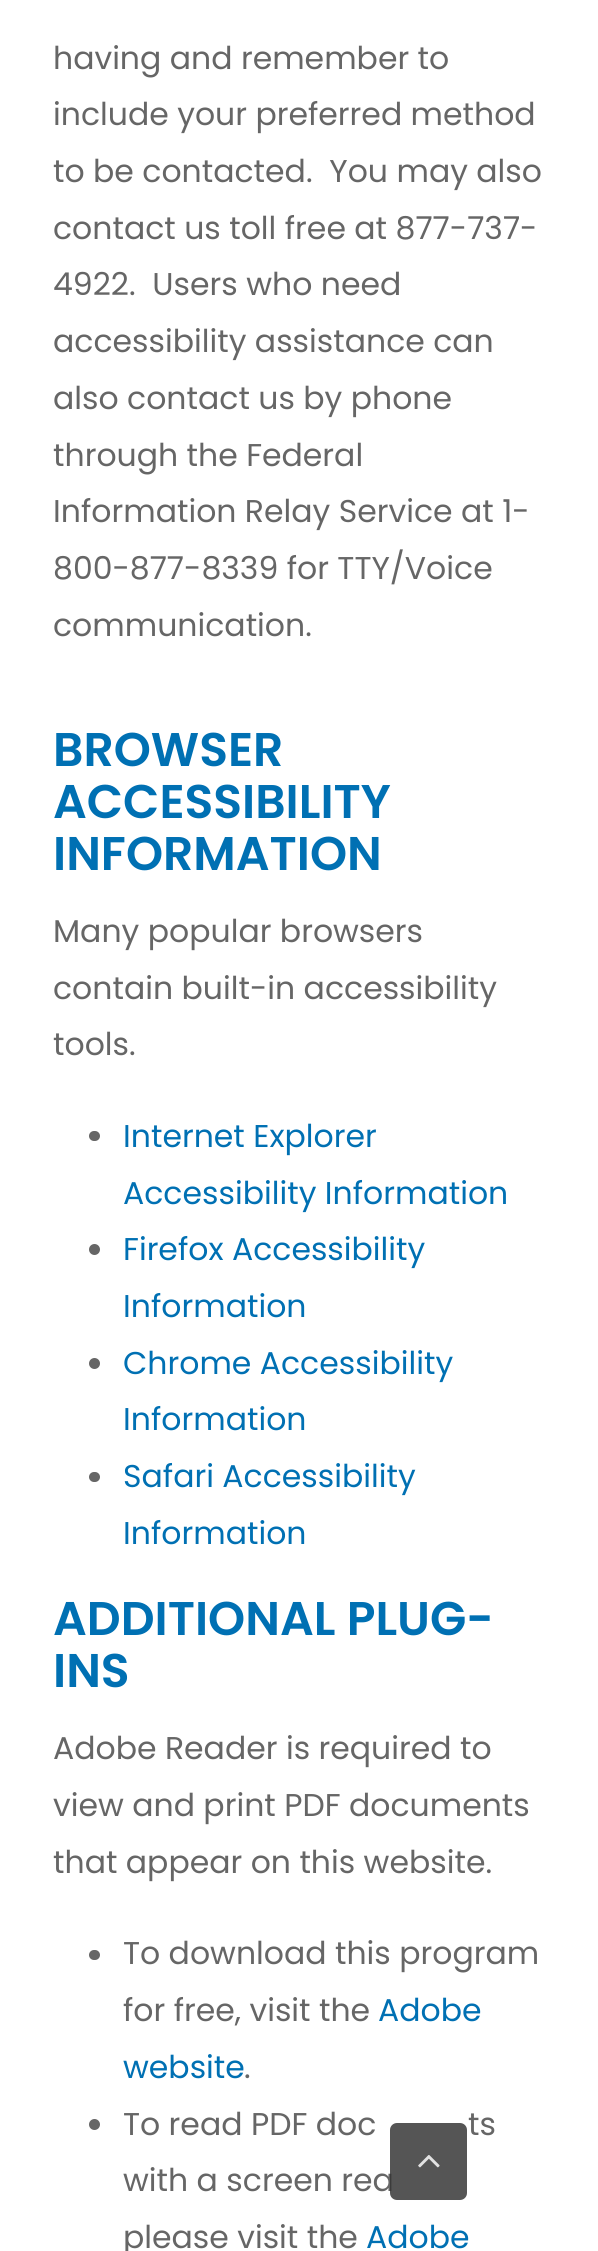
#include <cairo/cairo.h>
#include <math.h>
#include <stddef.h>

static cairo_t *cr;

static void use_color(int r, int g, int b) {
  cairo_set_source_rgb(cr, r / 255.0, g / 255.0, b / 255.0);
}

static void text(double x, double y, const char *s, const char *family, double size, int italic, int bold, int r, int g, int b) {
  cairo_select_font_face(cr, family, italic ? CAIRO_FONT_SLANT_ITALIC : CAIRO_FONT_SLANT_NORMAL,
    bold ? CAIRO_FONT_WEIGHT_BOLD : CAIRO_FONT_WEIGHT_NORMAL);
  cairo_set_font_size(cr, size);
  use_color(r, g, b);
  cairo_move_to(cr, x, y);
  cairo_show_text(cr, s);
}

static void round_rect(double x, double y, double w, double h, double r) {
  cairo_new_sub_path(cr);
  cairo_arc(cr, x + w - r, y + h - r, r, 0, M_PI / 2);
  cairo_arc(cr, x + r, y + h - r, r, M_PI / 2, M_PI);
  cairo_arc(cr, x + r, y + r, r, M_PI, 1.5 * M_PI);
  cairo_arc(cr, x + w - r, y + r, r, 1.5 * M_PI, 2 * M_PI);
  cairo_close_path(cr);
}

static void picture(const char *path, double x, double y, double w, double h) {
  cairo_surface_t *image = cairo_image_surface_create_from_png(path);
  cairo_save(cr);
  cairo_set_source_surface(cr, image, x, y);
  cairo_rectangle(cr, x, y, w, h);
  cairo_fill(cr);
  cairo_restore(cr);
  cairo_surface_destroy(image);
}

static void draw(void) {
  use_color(255, 255, 255);
  cairo_paint(cr);
  use_color(102, 102, 102);
  round_rect(89, 1131, 11, 10, 5);
  cairo_fill(cr);
  cairo_arc(cr, 94.5, 1249.5, 5.5, 0, 2 * M_PI);
  cairo_fill(cr);
  cairo_arc(cr, 94.5, 1363.5, 5.5, 0, 2 * M_PI);
  cairo_fill(cr);
  round_rect(89, 1472, 11, 10, 5);
  cairo_fill(cr);
  round_rect(89, 1950, 11, 10, 5);
  cairo_fill(cr);
  cairo_arc(cr, 94.5, 2124.5, 5.5, 0, 2 * M_PI);
  cairo_fill(cr);
  text(53, 69, "having and remember to", "Poppins", 31.5, 0, 0, 102, 102, 102);
  text(53, 125, "include your preferred method", "Poppins", 31.5, 0, 0, 102, 102, 102);
  text(53, 182, "to be contacted.  You may also", "Poppins", 31.5, 0, 0, 102, 102, 102);
  text(53, 239, "contact us toll free at 877-737-", "Poppins", 31.5, 0, 0, 102, 102, 102);
  text(53, 295, "4922.  Users who need", "Poppins", 31.5, 0, 0, 102, 102, 102);
  text(53, 352, "accessibility assistance can", "Poppins", 31.5, 0, 0, 102, 102, 102);
  text(53, 409, "also contact us by phone", "Poppins", 31.5, 0, 0, 102, 102, 102);
  text(53, 466, "through the Federal", "Poppins", 31.5, 0, 0, 102, 102, 102);
  text(53, 522, "Information Relay Service at 1-", "Poppins", 31.5, 0, 0, 102, 102, 102);
  text(53, 579, "800-877-8339 for TTY/Voice", "Poppins", 31.5, 0, 0, 102, 102, 102);
  text(53, 636, "communication.", "Poppins", 31.5, 0, 0, 102, 102, 102);
  text(53, 766, "BROWSER", "Poppins SemiBold", 47.25, 0, 0, 0, 112, 179);
  text(53, 818, "ACCESSIBILITY", "Poppins SemiBold", 47.25, 0, 0, 0, 112, 179);
  text(53, 870, "INFORMATION", "Poppins SemiBold", 47.25, 0, 0, 0, 112, 179);
  text(53, 942, "Many popular browsers", "Poppins", 31.5, 0, 0, 102, 102, 102);
  text(53, 999, "contain built-in accessibility", "Poppins", 31.5, 0, 0, 102, 102, 102);
  text(53, 1055, "tools.", "Poppins", 31.5, 0, 0, 102, 102, 102);
  text(123, 1147, "Internet Explorer", "Poppins", 31.5, 0, 0, 0, 112, 179);
  text(123, 1204, "Accessibility Information", "Poppins", 31.5, 0, 0, 0, 112, 179);
  text(123, 1260, "Firefox Accessibility", "Poppins", 31.5, 0, 0, 0, 112, 179);
  text(123, 1317, "Information", "Poppins", 31.5, 0, 0, 0, 112, 179);
  text(123, 1374, "Chrome Accessibility", "Poppins", 31.5, 0, 0, 0, 112, 179);
  text(123, 1430, "Information", "Poppins", 31.5, 0, 0, 0, 112, 179);
  text(123, 1487, "Safari Accessibility", "Poppins", 31.5, 0, 0, 0, 112, 179);
  text(123, 1544, "Information", "Poppins", 31.5, 0, 0, 0, 112, 179);
  text(53, 1635, "ADDITIONAL PLUG-", "Poppins SemiBold", 47.25, 0, 0, 0, 112, 179);
  text(53, 1687, "INS", "Poppins SemiBold", 47.25, 0, 0, 0, 112, 179);
  text(53, 1759, "Adobe Reader is required to", "Poppins", 31.5, 0, 0, 102, 102, 102);
  text(53, 1816, "view and print PDF documents", "Poppins", 31.5, 0, 0, 102, 102, 102);
  text(53, 1873, "that appear on this website.", "Poppins", 31.5, 0, 0, 102, 102, 102);
  text(123, 1964, "To download this program", "Poppins", 31.5, 0, 0, 102, 102, 102);
  text(123, 2021, "for free, visit the", "Poppins", 31.5, 0, 0, 102, 102, 102);
  text(378, 2021, "Adobe", "Poppins", 31.5, 0, 0, 0, 112, 179);
  text(123, 2078, "website", "Poppins", 31.5, 0, 0, 0, 112, 179);
  text(244, 2078, ".", "Poppins", 31.5, 0, 0, 102, 102, 102);
  text(123, 2135, "To read PDF doc", "Poppins", 31.5, 0, 0, 102, 102, 102);
  text(468, 2135, "ts", "Poppins", 31.5, 0, 0, 102, 102, 102);
  text(123, 2191, "with a screen rea", "Poppins", 31.5, 0, 0, 102, 102, 102);
  text(123, 2248, "please visit the", "Poppins", 31.5, 0, 0, 102, 102, 102);
  text(366, 2248, "Adobe", "Poppins", 31.5, 0, 0, 0, 112, 179);
  cairo_set_source_rgba(cr, 0.2, 0.2, 0.2, 0.83);
  round_rect(390, 2123, 77, 77, 7);
  cairo_fill(cr);
  picture("img_01.png", 418, 2155, 22, 13);
}

int main(void) {
  cairo_surface_t *surface = cairo_image_surface_create(CAIRO_FORMAT_RGB24, 598, 2251);
  cr = cairo_create(surface);
  cairo_font_options_t *options = cairo_font_options_create();
  cairo_font_options_set_hint_metrics(options, CAIRO_HINT_METRICS_OFF);
  cairo_font_options_set_hint_style(options, CAIRO_HINT_STYLE_NONE);
  cairo_set_font_options(cr, options);
  cairo_set_miter_limit(cr, 4);
  draw();
  cairo_surface_write_to_png(surface, "out.png");
  cairo_font_options_destroy(options);
  cairo_destroy(cr);
  cairo_surface_destroy(surface);
  return 0;
}
